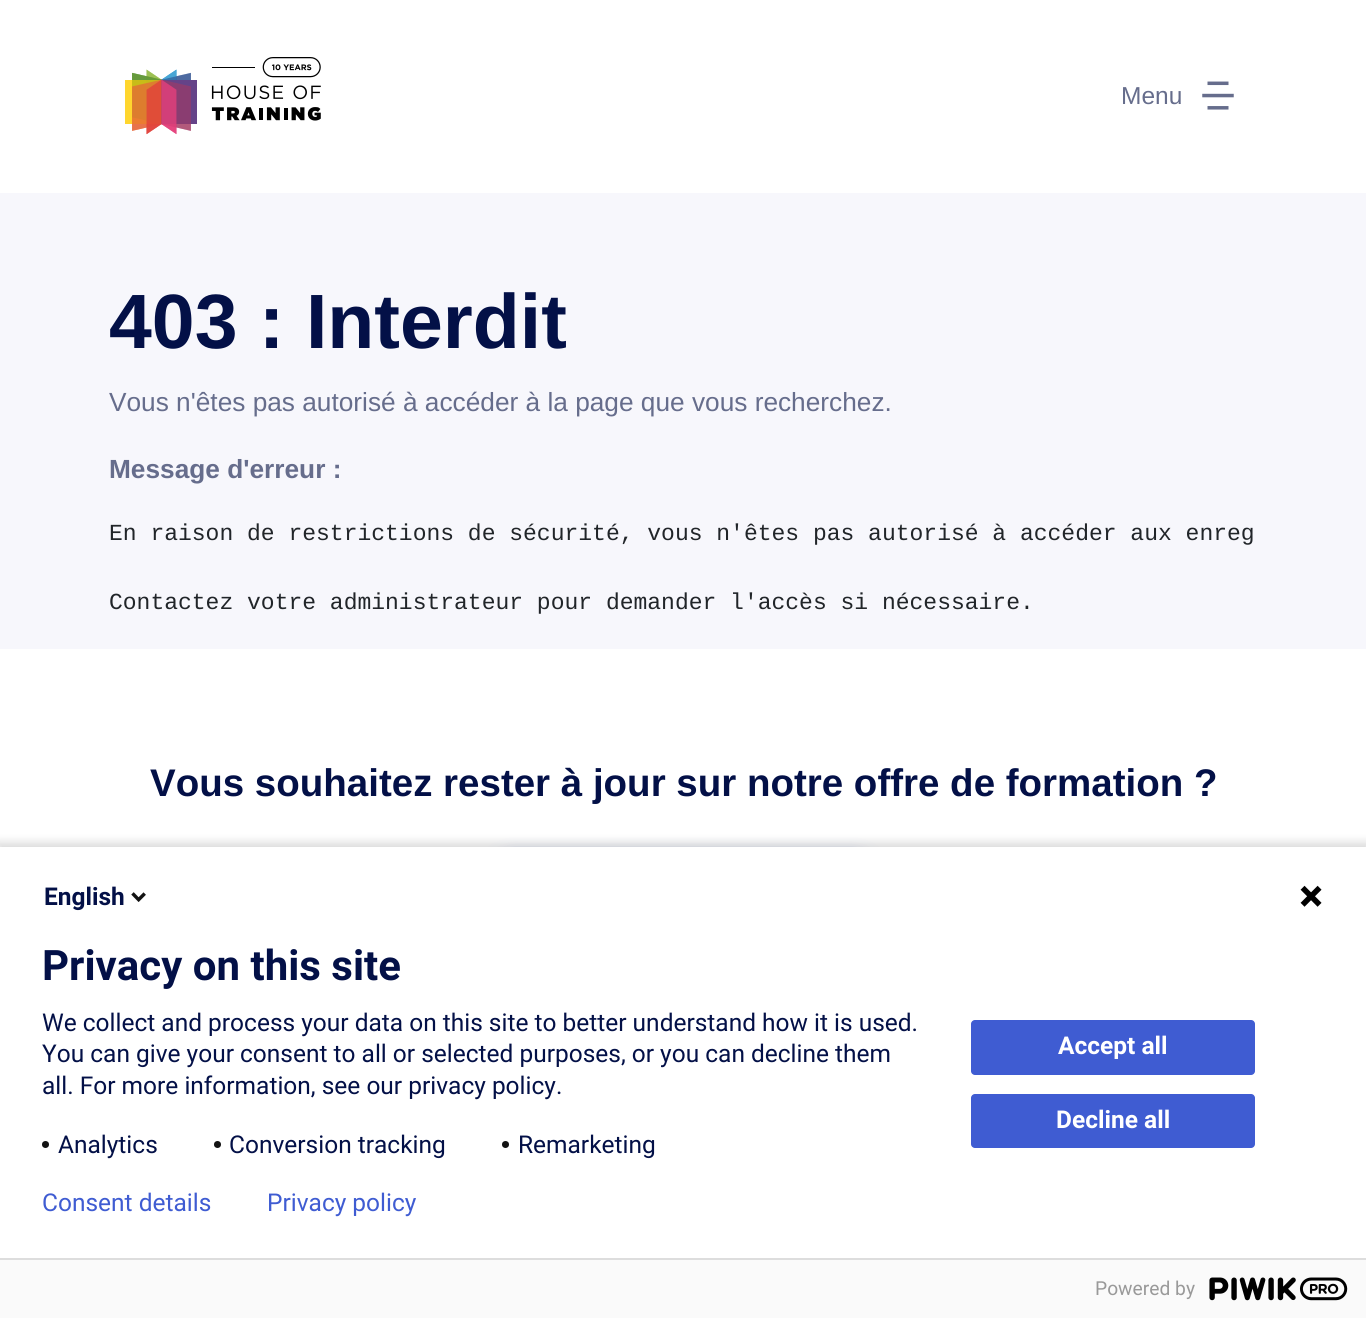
#include <cairo/cairo.h>
#include <math.h>
#include <stddef.h>

static cairo_t *cr;

static void use_color(int r, int g, int b) {
  cairo_set_source_rgb(cr, r / 255.0, g / 255.0, b / 255.0);
}

static void text(double x, double y, const char *s, const char *family, double size, int italic, int bold, int r, int g, int b) {
  cairo_select_font_face(cr, family, italic ? CAIRO_FONT_SLANT_ITALIC : CAIRO_FONT_SLANT_NORMAL,
    bold ? CAIRO_FONT_WEIGHT_BOLD : CAIRO_FONT_WEIGHT_NORMAL);
  cairo_set_font_size(cr, size);
  use_color(r, g, b);
  cairo_move_to(cr, x, y);
  cairo_show_text(cr, s);
}

static void box(double x, double y, double w, double h, int r, int g, int b) {
  use_color(r, g, b);
  cairo_rectangle(cr, x, y, w, h);
  cairo_fill(cr);
}

static void round_rect(double x, double y, double w, double h, double r) {
  cairo_new_sub_path(cr);
  cairo_arc(cr, x + w - r, y + h - r, r, 0, M_PI / 2);
  cairo_arc(cr, x + r, y + h - r, r, M_PI / 2, M_PI);
  cairo_arc(cr, x + r, y + r, r, M_PI, 1.5 * M_PI);
  cairo_arc(cr, x + w - r, y + r, r, 1.5 * M_PI, 2 * M_PI);
  cairo_close_path(cr);
}

static void shadow(double x, double y, double w, double h, double r, double blur, double alpha) {
  cairo_push_group_with_content(cr, CAIRO_CONTENT_ALPHA);
  cairo_set_operator(cr, CAIRO_OPERATOR_SOURCE);
  for (int i = 15; i >= -15 && fmin(w, h) + blur * i / 3 > 0; i -= 2) {
    double e = blur * i / 6;
    cairo_set_source_rgba(cr, 0, 0, 0, alpha * erfc((i - 1) / 8.5) / 2);
    round_rect(x - e, y - e, w + 2 * e, h + 2 * e, fmax(0, fmin(r + e + blur * .6, fmin(w, h) / 2 + e)));
    cairo_fill(cr);
  }
  cairo_pattern_t *soft = cairo_pop_group(cr);
  cairo_mask(cr, soft);
  cairo_pattern_destroy(soft);
}

static void picture(const char *path, double x, double y, double w, double h) {
  cairo_surface_t *image = cairo_image_surface_create_from_png(path);
  cairo_save(cr);
  cairo_set_source_surface(cr, image, x, y);
  cairo_rectangle(cr, x, y, w, h);
  cairo_fill(cr);
  cairo_restore(cr);
  cairo_surface_destroy(image);
}

static void draw(void) {
  use_color(247, 247, 252);
  cairo_paint(cr);
  box(0, 0, 1366, 193, 255, 255, 255);
  picture("img_01.png", 125, 57, 196, 78);
  picture("img_02.png", 1202, 81, 32, 29);
  box(0, 649, 1366, 198, 255, 255, 255);
  use_color(63, 92, 210);
  shadow(481, 854, 405, 77, 38.5, 7, 0.4);
  use_color(0, 0, 0);
  shadow(-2, 842, 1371, 476, 0, 4.5, 0.14);
  box(0, 847, 1366, 411, 255, 255, 255);
  picture("img_03.png", 131, 892, 15, 10);
  picture("img_04.png", 1300, 885, 22, 22);
  use_color(19, 19, 19);
  cairo_arc(cr, 45.5, 1144.5, 3.5, 0, 2 * M_PI);
  cairo_fill(cr);
  cairo_arc(cr, 217.5, 1144.5, 3.5, 0, 2 * M_PI);
  cairo_fill(cr);
  cairo_arc(cr, 505.5, 1144.5, 3.5, 0, 2 * M_PI);
  cairo_fill(cr);
  use_color(63, 92, 210);
  round_rect(971, 1020, 284, 55, 4);
  cairo_fill(cr);
  round_rect(971, 1094, 284, 54, 4);
  cairo_fill(cr);
  box(0, 1260, 1366, 58, 250, 250, 250);
  box(0, 1258, 1366, 2, 221, 221, 221);
  picture("img_05.png", 1209, 1277, 139, 24);
  text(1121, 104, "Menu", "Liberation Sans", 24.5, 0, 0, 102, 109, 140);
  text(109, 348, "403 : Interdit", "Liberation Sans", 77, 0, 1, 3, 16, 71);
  text(109, 411, "Vous n'êtes pas autorisé à accéder à la page que vous recherchez.", "Liberation Sans", 26.25, 0, 0, 102, 109, 140);
  text(109, 478, "Message d'erreur :", "Liberation Sans", 26.25, 0, 1, 102, 109, 140);
  text(109, 540, "En raison de restrictions de sécurité, vous n'êtes pas autorisé à accéder aux enreg", "Liberation Mono", 23, 0, 0, 33, 37, 41);
  text(109, 609, "Contactez votre administrateur pour demander l'accès si nécessaire.", "Liberation Mono", 23, 0, 0, 33, 37, 41);
  text(150, 796, "Vous souhaitez rester à jour sur notre offre de formation ?", "Liberation Sans", 38.5, 0, 1, 3, 16, 71);
  text(44, 905, "English", "Roboto", 24.5, 0, 1, 3, 16, 71);
  text(42, 980, "Privacy on this site", "Roboto", 42, 0, 1, 3, 16, 71);
  text(42, 1031, "We collect and process your data on this site to better understand how it is used.", "Roboto", 24.5, 0, 0, 3, 16, 71);
  text(42, 1062, "You can give your consent to all or selected purposes, or you can decline them", "Roboto", 24.5, 0, 0, 3, 16, 71);
  text(42, 1094, "all. For more information, see our privacy policy.", "Roboto", 24.5, 0, 0, 3, 16, 71);
  text(58, 1153, "Analytics", "Roboto", 24.5, 0, 0, 3, 16, 71);
  text(229, 1153, "Conversion tracking", "Roboto", 24.5, 0, 0, 3, 16, 71);
  text(518, 1153, "Remarketing", "Roboto", 24.5, 0, 0, 3, 16, 71);
  text(1058, 1054, "Accept all", "Roboto", 24.5, 0, 1, 255, 255, 255);
  text(1056, 1128, "Decline all", "Roboto", 24.5, 0, 1, 255, 255, 255);
  text(42, 1211, "Consent details", "Roboto", 24.5, 0, 0, 63, 92, 210);
  text(267, 1211, "Privacy policy", "Roboto", 24.5, 0, 0, 63, 92, 210);
  text(1095, 1295, "Powered by", "Roboto", 19.25, 0, 0, 153, 153, 153);
}

int main(void) {
  cairo_surface_t *surface = cairo_image_surface_create(CAIRO_FORMAT_RGB24, 1366, 1318);
  cr = cairo_create(surface);
  cairo_font_options_t *options = cairo_font_options_create();
  cairo_font_options_set_hint_metrics(options, CAIRO_HINT_METRICS_OFF);
  cairo_font_options_set_hint_style(options, CAIRO_HINT_STYLE_NONE);
  cairo_set_font_options(cr, options);
  cairo_set_miter_limit(cr, 4);
  draw();
  cairo_surface_write_to_png(surface, "out.png");
  cairo_font_options_destroy(options);
  cairo_destroy(cr);
  cairo_surface_destroy(surface);
  return 0;
}
